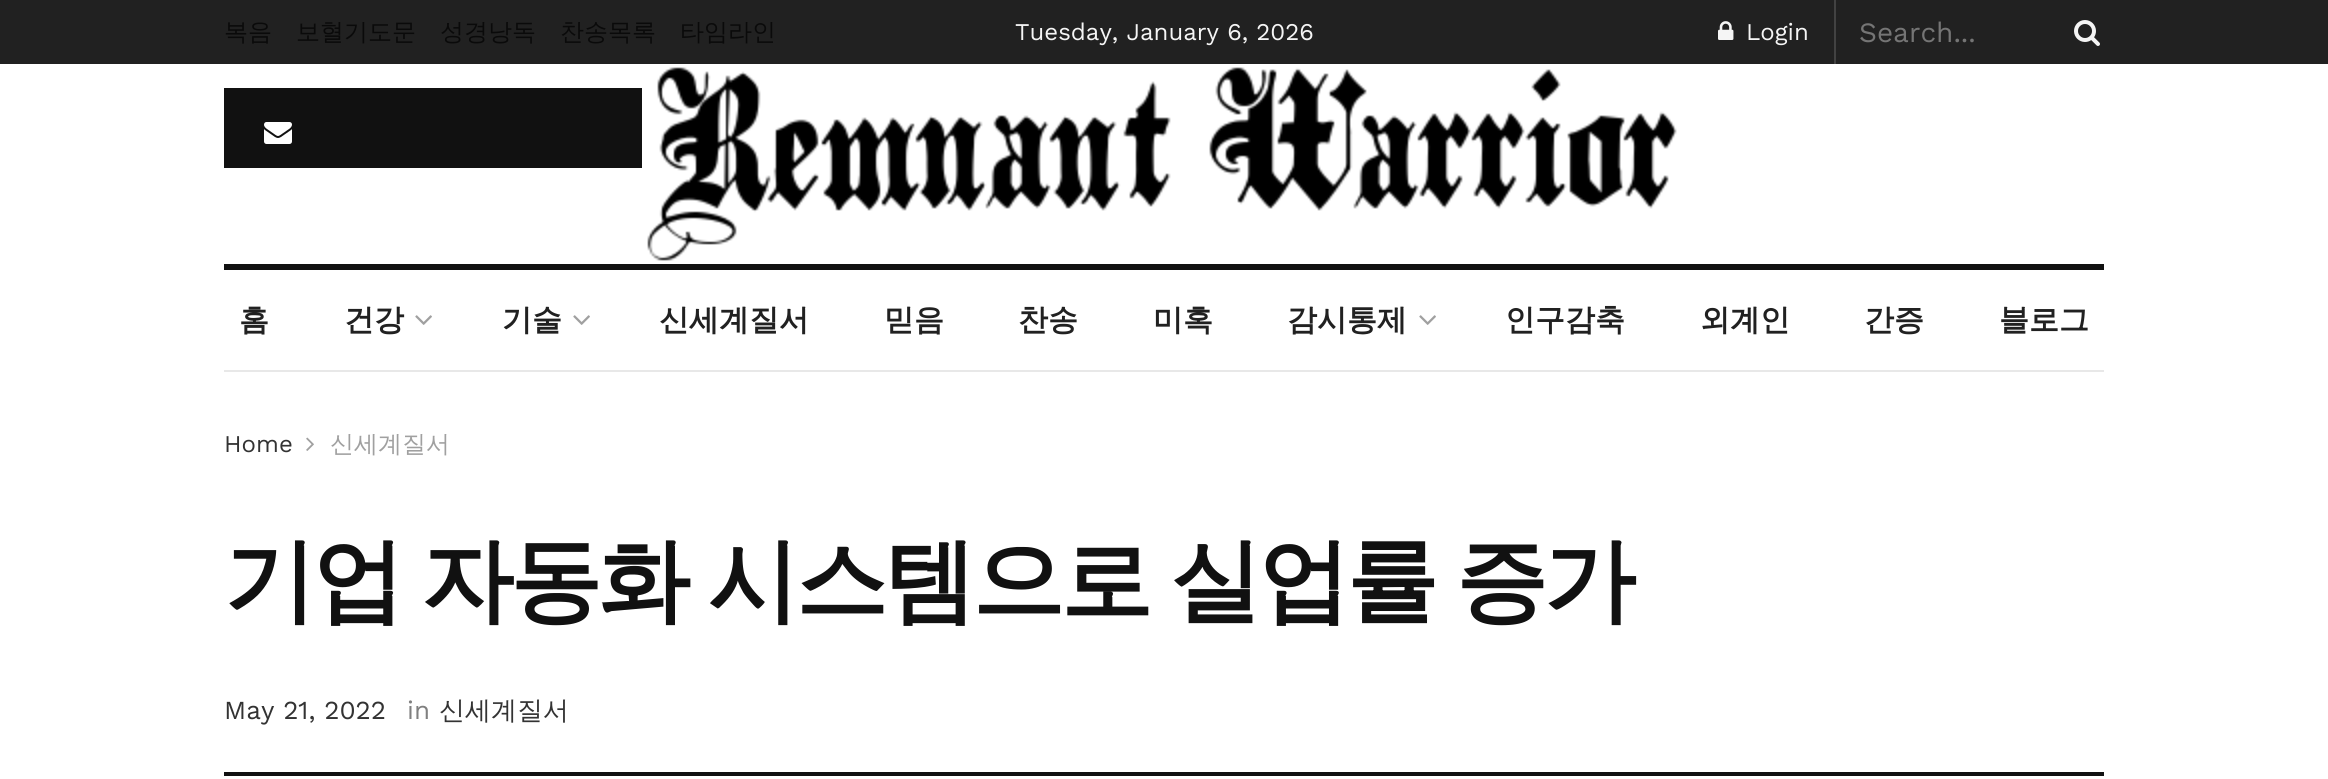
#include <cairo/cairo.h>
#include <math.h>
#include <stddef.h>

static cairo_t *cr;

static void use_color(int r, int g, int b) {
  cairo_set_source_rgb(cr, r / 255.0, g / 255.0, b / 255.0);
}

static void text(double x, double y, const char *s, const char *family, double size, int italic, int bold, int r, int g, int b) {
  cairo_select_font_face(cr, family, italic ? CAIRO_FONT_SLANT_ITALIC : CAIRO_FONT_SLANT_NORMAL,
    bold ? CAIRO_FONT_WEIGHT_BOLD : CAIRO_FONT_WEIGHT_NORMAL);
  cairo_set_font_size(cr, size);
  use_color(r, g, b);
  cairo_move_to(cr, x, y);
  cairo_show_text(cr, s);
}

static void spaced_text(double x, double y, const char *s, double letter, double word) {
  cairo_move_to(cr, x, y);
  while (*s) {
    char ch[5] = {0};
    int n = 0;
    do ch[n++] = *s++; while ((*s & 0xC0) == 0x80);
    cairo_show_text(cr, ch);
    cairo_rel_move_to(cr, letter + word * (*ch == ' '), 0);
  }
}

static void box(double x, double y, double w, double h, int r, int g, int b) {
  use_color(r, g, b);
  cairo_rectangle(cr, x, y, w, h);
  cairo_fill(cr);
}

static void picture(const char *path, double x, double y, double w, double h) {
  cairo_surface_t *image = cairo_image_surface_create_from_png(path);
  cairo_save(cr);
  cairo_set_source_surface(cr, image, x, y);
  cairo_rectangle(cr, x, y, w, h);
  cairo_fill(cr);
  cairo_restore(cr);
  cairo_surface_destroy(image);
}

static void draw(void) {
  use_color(255, 255, 255);
  cairo_paint(cr);
  box(0, 0, 2328, 64, 33, 33, 33);
  box(1834, 0, 2, 64, 66, 66, 66);
  picture("img_01.png", 1718, 21, 16, 19);
  picture("img_02.png", 2074, 20, 26, 26);
  box(224, 88, 418, 80, 17, 17, 17);
  picture("img_03.png", 264, 122, 28, 22);
  picture("img_04.png", 647, 67, 1030, 194);
  box(224, 264, 1880, 6, 17, 17, 17);
  box(224, 370, 1880, 2, 232, 232, 232);
  picture("img_05.png", 415, 315, 17, 10);
  picture("img_05.png", 573, 315, 17, 10);
  picture("img_05.png", 1419, 315, 17, 10);
  picture("img_06.png", 306, 437, 8, 14);
  box(224, 772, 1880, 4, 17, 17, 17);
  text(224, 40, "복음", "WenQuanYi Zen Hei Medium", 24, 0, 0, 10, 10, 10);
  text(296, 40, "보혈기도문", "WenQuanYi Zen Hei Medium", 24, 0, 0, 10, 10, 10);
  text(440, 40, "성경낭독", "WenQuanYi Zen Hei Medium", 24, 0, 0, 10, 10, 10);
  text(560, 40, "찬송목록", "WenQuanYi Zen Hei Medium", 24, 0, 0, 10, 10, 10);
  text(680, 40, "타임라인", "WenQuanYi Zen Hei Medium", 24, 0, 0, 10, 10, 10);
  text(1015, 40, "Tuesday, January 6, 2026", "Work Sans", 24, 0, 0, 245, 245, 245);
  text(1746, 40, "Login", "Work Sans", 24, 0, 0, 245, 245, 245);
  text(1859, 42, "Search...", "Work Sans", 28, 0, 0, 117, 117, 117);
  text(239, 330, "홈", "WenQuanYi Zen Hei", 30, 0, 1, 33, 33, 33);
  text(344, 330, "건강", "WenQuanYi Zen Hei", 30, 0, 1, 33, 33, 33);
  text(502, 330, "기술", "WenQuanYi Zen Hei", 30, 0, 1, 33, 33, 33);
  text(659, 330, "신세계질서", "WenQuanYi Zen Hei", 30, 0, 1, 33, 33, 33);
  text(884, 330, "믿음", "WenQuanYi Zen Hei", 30, 0, 1, 33, 33, 33);
  text(1018, 330, "찬송", "WenQuanYi Zen Hei", 30, 0, 1, 33, 33, 33);
  text(1153, 330, "미혹", "WenQuanYi Zen Hei", 30, 0, 1, 33, 33, 33);
  text(1287, 330, "감시통제", "WenQuanYi Zen Hei", 30, 0, 1, 33, 33, 33);
  text(1505, 330, "인구감축", "WenQuanYi Zen Hei", 30, 0, 1, 33, 33, 33);
  text(1700, 330, "외계인", "WenQuanYi Zen Hei", 30, 0, 1, 33, 33, 33);
  text(1864, 330, "간증", "WenQuanYi Zen Hei", 30, 0, 1, 33, 33, 33);
  text(1999, 330, "블로그", "WenQuanYi Zen Hei", 30, 0, 1, 33, 33, 33);
  text(224, 452, "Home", "Work Sans", 24, 0, 0, 51, 51, 51);
  text(330, 452, "신세계질서", "WenQuanYi Zen Hei Medium", 24, 0, 0, 160, 160, 160);
  cairo_select_font_face(cr, "WenQuanYi Zen Hei", CAIRO_FONT_SLANT_NORMAL, CAIRO_FONT_WEIGHT_BOLD);
  cairo_set_font_size(cr, 92);
  use_color(17, 17, 17);
  spaced_text(224, 612, "기업 자동화 시스템으로 실업률 증가", -3.7, -3);
  text(224, 719, "May 21, 2022", "Work Sans", 26, 0, 0, 51, 51, 51);
  text(407, 719, "in", "Work Sans", 26, 0, 0, 128, 128, 128);
  text(439, 719, "신세계질서", "WenQuanYi Zen Hei Medium", 26, 0, 0, 51, 51, 51);
}

int main(void) {
  cairo_surface_t *surface = cairo_image_surface_create(CAIRO_FORMAT_RGB24, 2328, 779);
  cr = cairo_create(surface);
  cairo_font_options_t *options = cairo_font_options_create();
  cairo_font_options_set_hint_metrics(options, CAIRO_HINT_METRICS_OFF);
  cairo_font_options_set_hint_style(options, CAIRO_HINT_STYLE_NONE);
  cairo_set_font_options(cr, options);
  cairo_set_miter_limit(cr, 4);
  draw();
  cairo_surface_write_to_png(surface, "out.png");
  cairo_font_options_destroy(options);
  cairo_destroy(cr);
  cairo_surface_destroy(surface);
  return 0;
}
